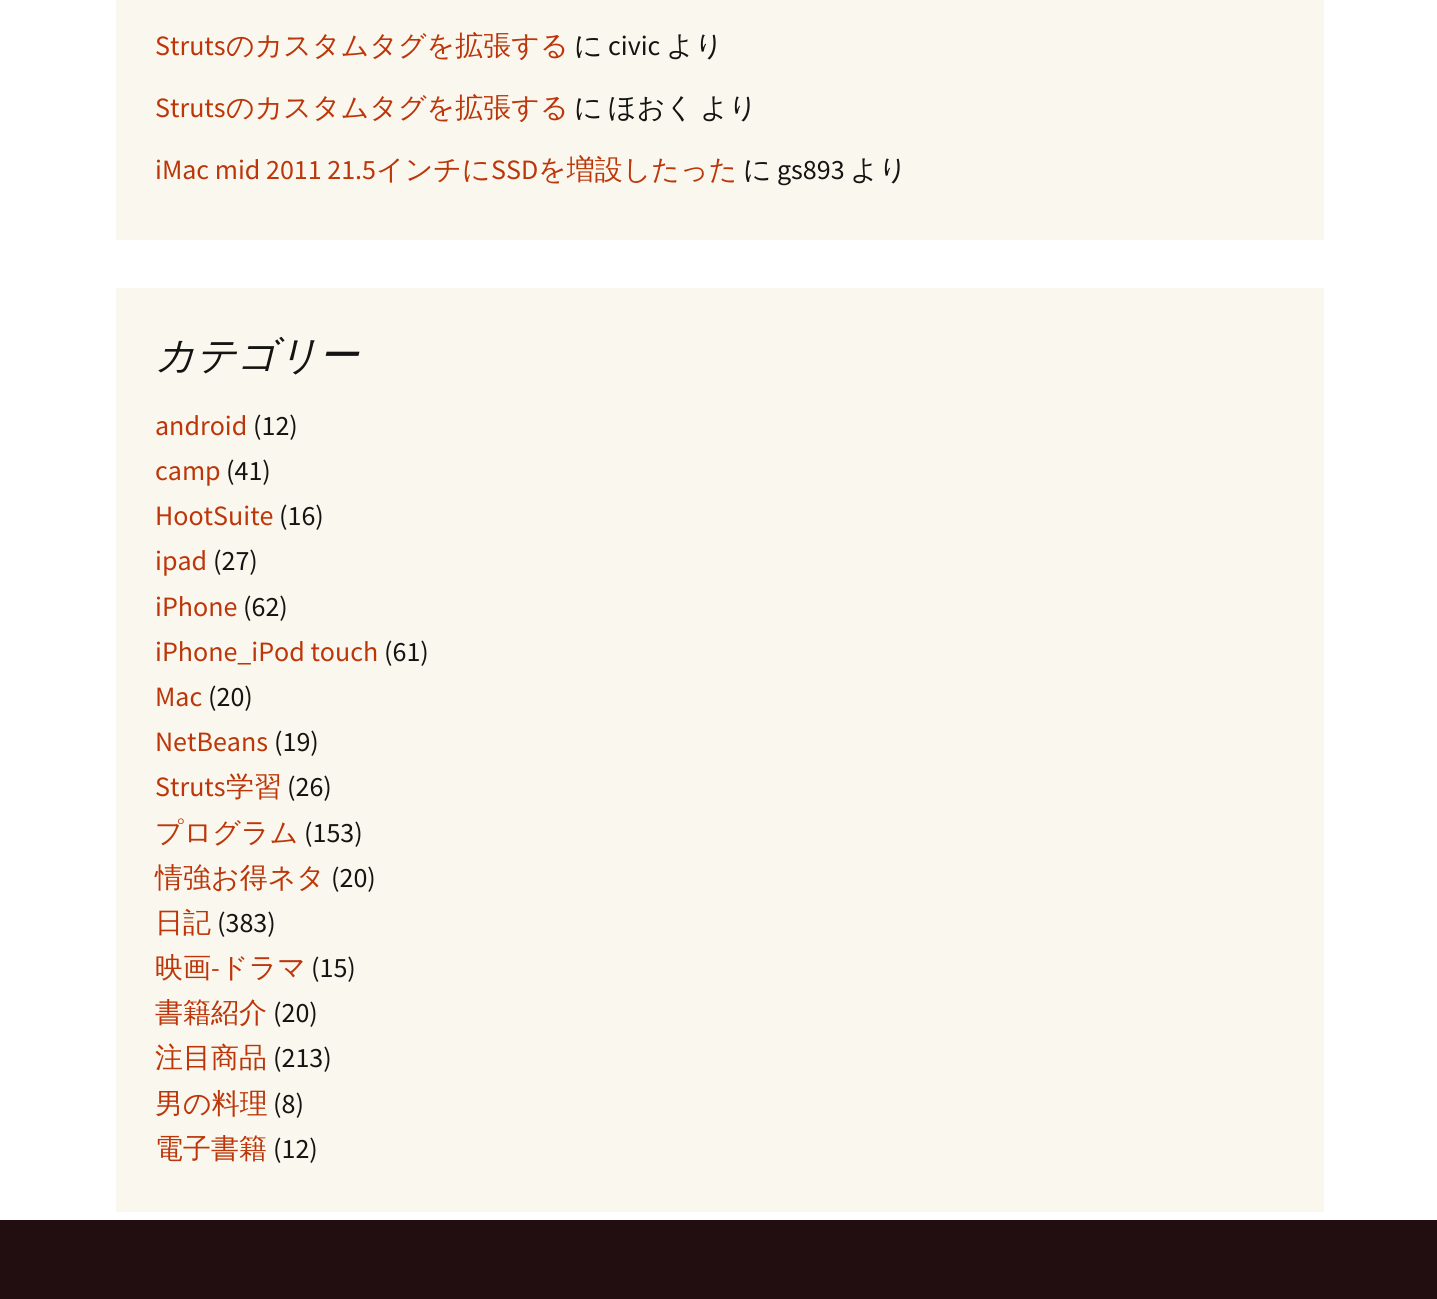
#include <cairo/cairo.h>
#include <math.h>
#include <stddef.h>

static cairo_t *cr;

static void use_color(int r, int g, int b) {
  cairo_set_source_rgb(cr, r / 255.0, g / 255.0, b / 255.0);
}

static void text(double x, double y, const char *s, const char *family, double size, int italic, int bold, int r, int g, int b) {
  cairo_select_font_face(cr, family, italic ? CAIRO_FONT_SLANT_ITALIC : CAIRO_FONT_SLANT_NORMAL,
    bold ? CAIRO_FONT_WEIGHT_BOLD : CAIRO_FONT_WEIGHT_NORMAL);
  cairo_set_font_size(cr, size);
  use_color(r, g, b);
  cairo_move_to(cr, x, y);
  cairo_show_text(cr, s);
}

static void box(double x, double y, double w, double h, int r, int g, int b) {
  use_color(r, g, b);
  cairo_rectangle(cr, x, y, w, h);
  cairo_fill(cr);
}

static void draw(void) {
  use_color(255, 255, 255);
  cairo_paint(cr);
  box(116, 0, 1208, 240, 250, 248, 238);
  box(116, 288, 1208, 924, 250, 248, 238);
  box(0, 1220, 1437, 79, 34, 14, 16);
  text(155, 55, "Struts", "Source Sans Pro", 28, 0, 0, 188, 54, 10);
  text(226, 55, "のカスタムタグを拡張する", "WenQuanYi Zen Hei Medium", 28, 0, 0, 188, 54, 10);
  text(574, 55, "に", "WenQuanYi Zen Hei Medium", 28, 0, 0, 20, 20, 18);
  text(608, 55, "civic", "Source Sans Pro", 28, 0, 0, 20, 20, 18);
  text(666, 55, "より", "WenQuanYi Zen Hei Medium", 28, 0, 0, 20, 20, 18);
  text(155, 117, "Struts", "Source Sans Pro", 28, 0, 0, 188, 54, 10);
  text(226, 117, "のカスタムタグを拡張する", "WenQuanYi Zen Hei Medium", 28, 0, 0, 188, 54, 10);
  text(574, 117, "に", "WenQuanYi Zen Hei Medium", 28, 0, 0, 20, 20, 18);
  text(608, 117, "ほおく", "WenQuanYi Zen Hei Medium", 28, 0, 0, 20, 20, 18);
  text(700, 117, "より", "WenQuanYi Zen Hei Medium", 28, 0, 0, 20, 20, 18);
  text(155, 179, "iMac mid 2011 21.5", "Source Sans Pro", 28, 0, 0, 188, 54, 10);
  text(376, 179, "インチに", "WenQuanYi Zen Hei Medium", 28, 0, 0, 188, 54, 10);
  text(491, 179, "SSD", "Source Sans Pro", 28, 0, 0, 188, 54, 10);
  text(538, 179, "を増設したった", "WenQuanYi Zen Hei Medium", 28, 0, 0, 188, 54, 10);
  text(743, 179, "に", "WenQuanYi Zen Hei Medium", 28, 0, 0, 20, 20, 18);
  text(777, 179, "gs893", "Source Sans Pro", 28, 0, 0, 20, 20, 18);
  text(850, 179, "より", "WenQuanYi Zen Hei Medium", 28, 0, 0, 20, 20, 18);
  text(155, 369, "カテゴリー", "WenQuanYi Zen Hei Medium", 40, 1, 0, 20, 20, 18);
  text(155, 435, "android", "Source Sans Pro", 28, 0, 0, 188, 54, 10);
  text(253, 435, "(12)", "Source Sans Pro", 28, 0, 0, 20, 20, 18);
  text(155, 480, "camp", "Source Sans Pro", 28, 0, 0, 188, 54, 10);
  text(226, 480, "(41)", "Source Sans Pro", 28, 0, 0, 20, 20, 18);
  text(155, 525, "HootSuite", "Source Sans Pro", 28, 0, 0, 188, 54, 10);
  text(279, 525, "(16)", "Source Sans Pro", 28, 0, 0, 20, 20, 18);
  text(155, 570, "ipad", "Source Sans Pro", 28, 0, 0, 188, 54, 10);
  text(213, 570, "(27)", "Source Sans Pro", 28, 0, 0, 20, 20, 18);
  text(155, 616, "iPhone", "Source Sans Pro", 28, 0, 0, 188, 54, 10);
  text(243, 616, "(62)", "Source Sans Pro", 28, 0, 0, 20, 20, 18);
  text(155, 661, "iPhone_iPod touch", "Source Sans Pro", 28, 0, 0, 188, 54, 10);
  text(384, 661, "(61)", "Source Sans Pro", 28, 0, 0, 20, 20, 18);
  text(155, 706, "Mac", "Source Sans Pro", 28, 0, 0, 188, 54, 10);
  text(208, 706, "(20)", "Source Sans Pro", 28, 0, 0, 20, 20, 18);
  text(155, 751, "NetBeans", "Source Sans Pro", 28, 0, 0, 188, 54, 10);
  text(274, 751, "(19)", "Source Sans Pro", 28, 0, 0, 20, 20, 18);
  text(155, 796, "Struts", "Source Sans Pro", 28, 0, 0, 188, 54, 10);
  text(226, 796, "学習", "WenQuanYi Zen Hei Medium", 28, 0, 0, 188, 54, 10);
  text(287, 796, "(26)", "Source Sans Pro", 28, 0, 0, 20, 20, 18);
  text(155, 842, "プログラム", "WenQuanYi Zen Hei Medium", 28, 0, 0, 188, 54, 10);
  text(304, 842, "(153)", "Source Sans Pro", 28, 0, 0, 20, 20, 18);
  text(155, 887, "情強お得ネタ", "WenQuanYi Zen Hei Medium", 28, 0, 0, 188, 54, 10);
  text(331, 887, "(20)", "Source Sans Pro", 28, 0, 0, 20, 20, 18);
  text(155, 932, "日記", "WenQuanYi Zen Hei Medium", 28, 0, 0, 188, 54, 10);
  text(217, 932, "(383)", "Source Sans Pro", 28, 0, 0, 20, 20, 18);
  text(155, 977, "映画", "WenQuanYi Zen Hei Medium", 28, 0, 0, 188, 54, 10);
  text(211, 977, "-", "Source Sans Pro", 28, 0, 0, 188, 54, 10);
  text(220, 977, "ドラマ", "WenQuanYi Zen Hei Medium", 28, 0, 0, 188, 54, 10);
  text(311, 977, "(15)", "Source Sans Pro", 28, 0, 0, 20, 20, 18);
  text(155, 1022, "書籍紹介", "WenQuanYi Zen Hei Medium", 28, 0, 0, 188, 54, 10);
  text(273, 1022, "(20)", "Source Sans Pro", 28, 0, 0, 20, 20, 18);
  text(155, 1067, "注目商品", "WenQuanYi Zen Hei Medium", 28, 0, 0, 188, 54, 10);
  text(273, 1067, "(213)", "Source Sans Pro", 28, 0, 0, 20, 20, 18);
  text(155, 1113, "男の料理", "WenQuanYi Zen Hei Medium", 28, 0, 0, 188, 54, 10);
  text(273, 1113, "(8)", "Source Sans Pro", 28, 0, 0, 20, 20, 18);
  text(155, 1158, "電子書籍", "WenQuanYi Zen Hei Medium", 28, 0, 0, 188, 54, 10);
  text(273, 1158, "(12)", "Source Sans Pro", 28, 0, 0, 20, 20, 18);
}

int main(void) {
  cairo_surface_t *surface = cairo_image_surface_create(CAIRO_FORMAT_RGB24, 1437, 1299);
  cr = cairo_create(surface);
  cairo_font_options_t *options = cairo_font_options_create();
  cairo_font_options_set_hint_metrics(options, CAIRO_HINT_METRICS_OFF);
  cairo_font_options_set_hint_style(options, CAIRO_HINT_STYLE_NONE);
  cairo_set_font_options(cr, options);
  cairo_set_miter_limit(cr, 4);
  draw();
  cairo_surface_write_to_png(surface, "out.png");
  cairo_font_options_destroy(options);
  cairo_destroy(cr);
  cairo_surface_destroy(surface);
  return 0;
}
